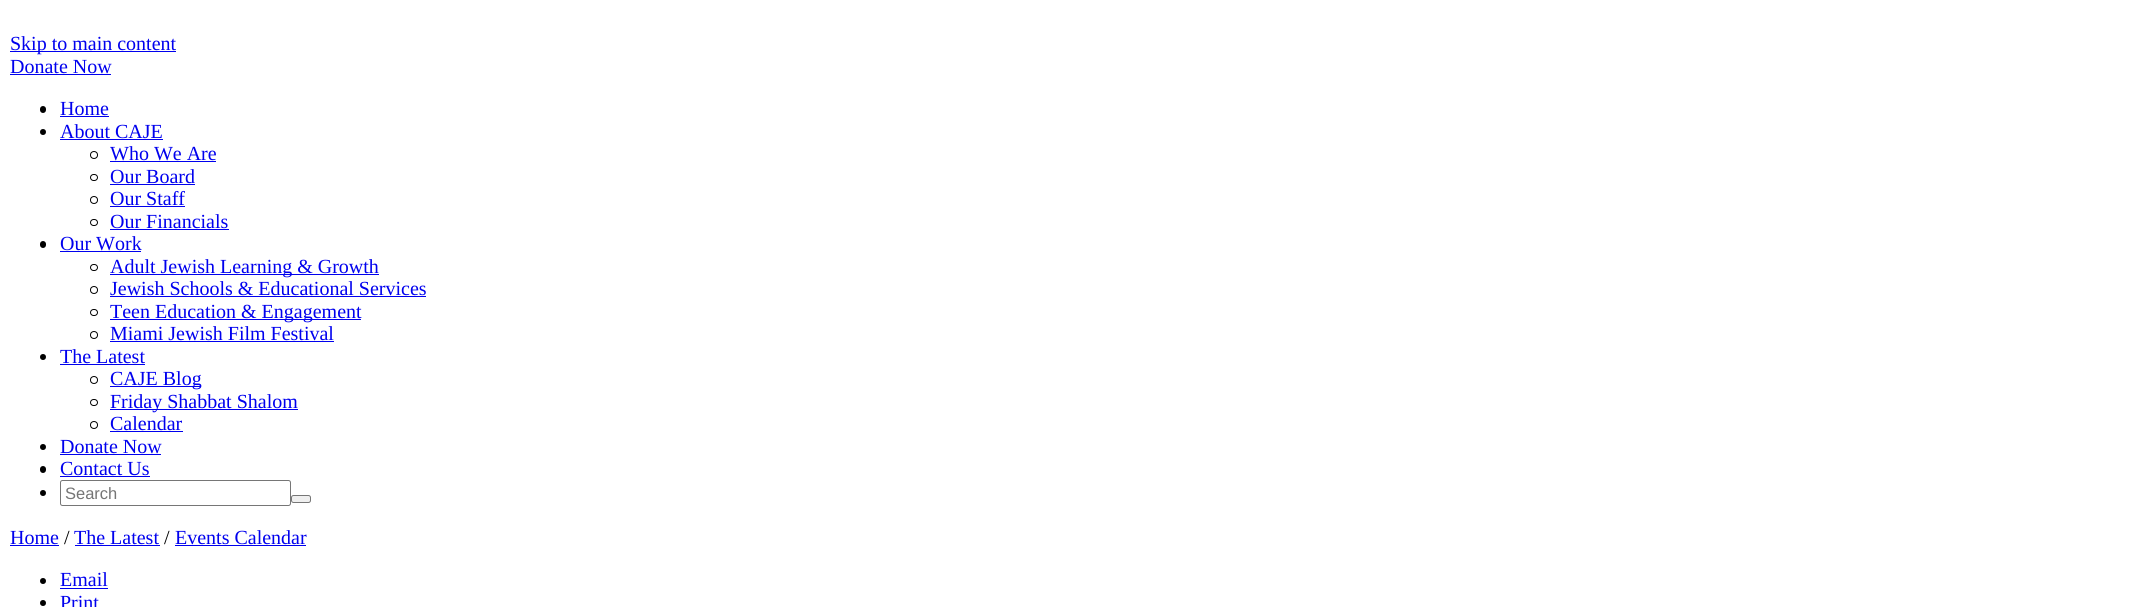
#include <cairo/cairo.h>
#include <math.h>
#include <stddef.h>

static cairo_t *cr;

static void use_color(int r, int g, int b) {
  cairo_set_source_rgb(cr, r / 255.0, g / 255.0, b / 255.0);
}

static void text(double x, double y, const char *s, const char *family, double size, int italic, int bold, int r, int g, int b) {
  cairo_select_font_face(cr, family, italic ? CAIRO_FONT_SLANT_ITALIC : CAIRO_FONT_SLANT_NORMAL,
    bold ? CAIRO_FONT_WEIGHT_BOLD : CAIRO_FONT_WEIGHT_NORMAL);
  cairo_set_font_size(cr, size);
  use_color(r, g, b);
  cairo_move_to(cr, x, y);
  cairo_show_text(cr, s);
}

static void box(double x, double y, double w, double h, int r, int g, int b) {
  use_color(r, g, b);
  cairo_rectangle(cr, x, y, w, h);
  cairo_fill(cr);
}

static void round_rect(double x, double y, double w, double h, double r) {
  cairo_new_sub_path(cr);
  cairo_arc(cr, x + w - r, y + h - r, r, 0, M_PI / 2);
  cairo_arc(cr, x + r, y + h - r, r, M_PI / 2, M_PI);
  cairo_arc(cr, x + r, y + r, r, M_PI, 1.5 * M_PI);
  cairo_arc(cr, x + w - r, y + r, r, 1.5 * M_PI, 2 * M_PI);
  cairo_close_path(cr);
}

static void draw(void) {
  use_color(255, 255, 255);
  cairo_paint(cr);
  box(10, 51, 166, 1, 0, 0, 238);
  box(10, 74, 101, 1, 0, 0, 238);
  use_color(0, 0, 0);
  round_rect(40, 106, 6, 7, 3);
  cairo_fill(cr);
  box(60, 116, 49, 1, 0, 0, 238);
  use_color(0, 0, 0);
  cairo_arc(cr, 43, 132, 3, 0, 2 * M_PI);
  cairo_fill(cr);
  box(60, 139, 103, 1, 0, 0, 238);
  cairo_arc(cr, 94, 155, 3.5, 0, 2 * M_PI);
  use_color(0, 0, 0);
  cairo_set_line_width(cr, 1);
  cairo_stroke(cr);
  box(110, 161, 106, 1, 0, 0, 238);
  round_rect(90.5, 174.5, 7, 6, 3);
  use_color(0, 0, 0);
  cairo_stroke(cr);
  box(110, 184, 85, 1, 0, 0, 238);
  cairo_arc(cr, 94, 200, 3.5, 0, 2 * M_PI);
  use_color(0, 0, 0);
  cairo_stroke(cr);
  box(110, 206, 75, 1, 0, 0, 238);
  round_rect(90.5, 219.5, 7, 6, 3);
  use_color(0, 0, 0);
  cairo_stroke(cr);
  box(110, 229, 119, 1, 0, 0, 238);
  use_color(0, 0, 0);
  round_rect(40, 241, 6, 7, 3);
  cairo_fill(cr);
  box(60, 251, 81, 1, 0, 0, 238);
  round_rect(90.5, 264.5, 7, 6, 3);
  use_color(0, 0, 0);
  cairo_stroke(cr);
  box(110, 274, 269, 1, 0, 0, 238);
  cairo_arc(cr, 94, 290, 3.5, 0, 2 * M_PI);
  use_color(0, 0, 0);
  cairo_stroke(cr);
  box(110, 296, 316, 1, 0, 0, 238);
  round_rect(90.5, 309.5, 7, 6, 3);
  use_color(0, 0, 0);
  cairo_stroke(cr);
  box(110, 319, 251, 1, 0, 0, 238);
  cairo_arc(cr, 94, 335, 3.5, 0, 2 * M_PI);
  use_color(0, 0, 0);
  cairo_stroke(cr);
  box(110, 341, 224, 1, 0, 0, 238);
  use_color(0, 0, 0);
  cairo_arc(cr, 43, 357, 3, 0, 2 * M_PI);
  cairo_fill(cr);
  box(60, 364, 85, 1, 0, 0, 238);
  cairo_arc(cr, 94, 380, 3.5, 0, 2 * M_PI);
  use_color(0, 0, 0);
  cairo_stroke(cr);
  box(110, 386, 91, 1, 0, 0, 238);
  round_rect(90.5, 399.5, 7, 6, 3);
  use_color(0, 0, 0);
  cairo_stroke(cr);
  box(110, 409, 188, 1, 0, 0, 238);
  cairo_arc(cr, 94, 425, 3.5, 0, 2 * M_PI);
  use_color(0, 0, 0);
  cairo_stroke(cr);
  box(110, 431, 73, 1, 0, 0, 238);
  use_color(0, 0, 0);
  cairo_arc(cr, 43, 447, 3, 0, 2 * M_PI);
  cairo_fill(cr);
  box(60, 454, 101, 1, 0, 0, 238);
  use_color(0, 0, 0);
  round_rect(40, 466, 6, 7, 3);
  cairo_fill(cr);
  box(60, 476, 90, 1, 0, 0, 238);
  use_color(0, 0, 0);
  cairo_arc(cr, 43, 493, 3, 0, 2 * M_PI);
  cairo_fill(cr);
  round_rect(60.5, 480.5, 230, 25, 2);
  use_color(118, 118, 118);
  cairo_stroke(cr);
  use_color(239, 239, 239);
  round_rect(291.5, 495.5, 19, 7, 2);
  cairo_fill_preserve(cr);
  use_color(118, 118, 118);
  cairo_stroke(cr);
  box(10, 545, 49, 1, 0, 0, 238);
  box(75, 545, 85, 1, 0, 0, 238);
  box(175, 545, 131, 1, 0, 0, 238);
  use_color(0, 0, 0);
  cairo_arc(cr, 43, 581, 3, 0, 2 * M_PI);
  cairo_fill(cr);
  box(60, 588, 48, 1, 0, 0, 238);
  use_color(0, 0, 0);
  cairo_arc(cr, 43, 603, 3, 0, 2 * M_PI);
  cairo_fill(cr);
  text(10, 50, "Skip to main content", "Liberation Serif", 20, 0, 0, 0, 0, 238);
  text(10, 73, "Donate Now", "Liberation Serif", 20, 0, 0, 0, 0, 238);
  text(60, 115, "Home", "Liberation Serif", 20, 0, 0, 0, 0, 238);
  text(60, 138, "About CAJE", "Liberation Serif", 20, 0, 0, 0, 0, 238);
  text(110, 160, "Who We Are", "Liberation Serif", 20, 0, 0, 0, 0, 238);
  text(110, 183, "Our Board", "Liberation Serif", 20, 0, 0, 0, 0, 238);
  text(110, 205, "Our Staff", "Liberation Serif", 20, 0, 0, 0, 0, 238);
  text(110, 228, "Our Financials", "Liberation Serif", 20, 0, 0, 0, 0, 238);
  text(60, 250, "Our Work", "Liberation Serif", 20, 0, 0, 0, 0, 238);
  text(110, 273, "Adult Jewish Learning & Growth", "Liberation Serif", 20, 0, 0, 0, 0, 238);
  text(110, 295, "Jewish Schools & Educational Services", "Liberation Serif", 20, 0, 0, 0, 0, 238);
  text(110, 318, "Teen Education & Engagement", "Liberation Serif", 20, 0, 0, 0, 0, 238);
  text(110, 340, "Miami Jewish Film Festival", "Liberation Serif", 20, 0, 0, 0, 0, 238);
  text(60, 363, "The Latest", "Liberation Serif", 20, 0, 0, 0, 0, 238);
  text(110, 385, "CAJE Blog", "Liberation Serif", 20, 0, 0, 0, 0, 238);
  text(110, 408, "Friday Shabbat Shalom", "Liberation Serif", 20, 0, 0, 0, 0, 238);
  text(110, 430, "Calendar", "Liberation Serif", 20, 0, 0, 0, 0, 238);
  text(60, 453, "Donate Now", "Liberation Serif", 20, 0, 0, 0, 0, 238);
  text(60, 475, "Contact Us", "Liberation Serif", 20, 0, 0, 0, 0, 238);
  text(65, 499, "Search", "Liberation Sans", 16.5, 0, 0, 117, 117, 117);
  text(10, 544, "Home", "Liberation Serif", 20, 0, 0, 0, 0, 238);
  text(64, 544, "/", "Liberation Serif", 20, 0, 0, 0, 0, 0);
  text(74, 544, "The Latest", "Liberation Serif", 20, 0, 0, 0, 0, 238);
  text(164, 544, "/", "Liberation Serif", 20, 0, 0, 0, 0, 0);
  text(175, 544, "Events Calendar", "Liberation Serif", 20, 0, 0, 0, 0, 238);
  text(60, 586, "Email", "Liberation Serif", 20, 0, 0, 0, 0, 238);
  text(60, 609, "Print", "Liberation Serif", 20, 0, 0, 0, 0, 238);
}

int main(void) {
  cairo_surface_t *surface = cairo_image_surface_create(CAIRO_FORMAT_RGB24, 2139, 607);
  cr = cairo_create(surface);
  cairo_font_options_t *options = cairo_font_options_create();
  cairo_font_options_set_hint_metrics(options, CAIRO_HINT_METRICS_OFF);
  cairo_font_options_set_hint_style(options, CAIRO_HINT_STYLE_NONE);
  cairo_set_font_options(cr, options);
  cairo_set_miter_limit(cr, 4);
  draw();
  cairo_surface_write_to_png(surface, "out.png");
  cairo_font_options_destroy(options);
  cairo_destroy(cr);
  cairo_surface_destroy(surface);
  return 0;
}
